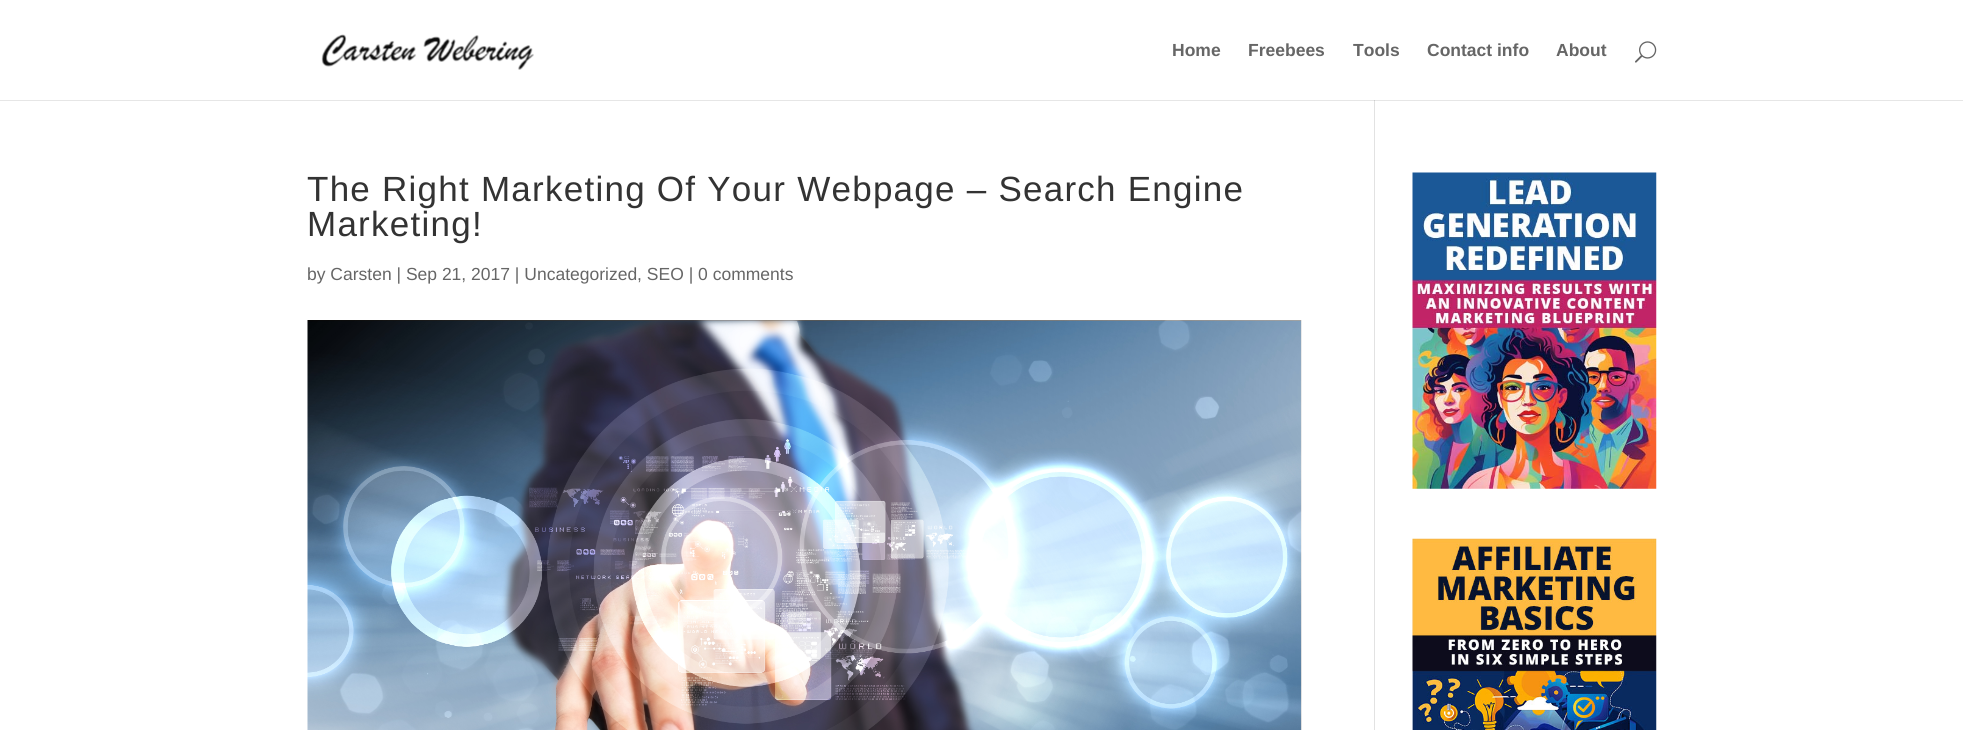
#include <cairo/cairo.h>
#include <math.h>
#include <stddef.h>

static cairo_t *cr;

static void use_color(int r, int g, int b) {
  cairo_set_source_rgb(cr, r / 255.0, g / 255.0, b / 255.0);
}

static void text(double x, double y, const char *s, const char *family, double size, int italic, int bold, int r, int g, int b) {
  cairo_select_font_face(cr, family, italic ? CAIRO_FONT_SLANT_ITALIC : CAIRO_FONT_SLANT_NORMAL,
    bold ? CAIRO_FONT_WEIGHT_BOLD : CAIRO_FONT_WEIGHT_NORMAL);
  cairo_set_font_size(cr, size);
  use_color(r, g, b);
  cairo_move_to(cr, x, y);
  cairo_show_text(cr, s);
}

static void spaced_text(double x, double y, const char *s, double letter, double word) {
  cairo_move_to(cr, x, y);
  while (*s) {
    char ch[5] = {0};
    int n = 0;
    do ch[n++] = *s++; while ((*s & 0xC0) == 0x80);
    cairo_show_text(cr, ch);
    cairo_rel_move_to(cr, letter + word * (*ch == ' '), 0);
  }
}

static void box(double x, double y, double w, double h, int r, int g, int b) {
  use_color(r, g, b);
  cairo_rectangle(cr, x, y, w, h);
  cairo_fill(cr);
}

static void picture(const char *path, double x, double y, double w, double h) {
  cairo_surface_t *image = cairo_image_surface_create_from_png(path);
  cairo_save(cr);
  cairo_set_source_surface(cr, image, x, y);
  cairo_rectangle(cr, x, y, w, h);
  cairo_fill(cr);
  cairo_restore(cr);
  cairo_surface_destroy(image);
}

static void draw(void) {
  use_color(255, 255, 255);
  cairo_paint(cr);
  box(1374, 100, 1, 630, 226, 226, 226);
  cairo_set_source_rgba(cr, 0, 0, 0, 0.1);
  cairo_new_path(cr);
  cairo_move_to(cr, 0, 100);
  cairo_line_to(cr, 0, 101);
  cairo_line_to(cr, 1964, 101);
  cairo_line_to(cr, 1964, 1);
  cairo_line_to(cr, 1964, 100);
  cairo_close_path(cr);
  cairo_fill(cr);
  picture("img_01.png", 321, 34, 213, 36);
  picture("img_02.png", 1635, 41, 22, 22);
  picture("img_03.png", 307, 320, 995, 410);
  picture("img_04.png", 1412, 172, 245, 317);
  picture("img_05.png", 1412, 538, 245, 192);
  text(1172, 56, "Home", "Liberation Sans", 17.5, 0, 1, 102, 102, 102);
  text(1248, 56, "Freebees", "Liberation Sans", 17.5, 0, 1, 102, 102, 102);
  text(1353, 56, "Tools", "Liberation Sans", 17.5, 0, 1, 102, 102, 102);
  text(1427, 56, "Contact info", "Liberation Sans", 17.5, 0, 1, 102, 102, 102);
  text(1556, 56, "About", "Liberation Sans", 17.5, 0, 1, 102, 102, 102);
  cairo_select_font_face(cr, "Liberation Sans", CAIRO_FONT_SLANT_NORMAL, CAIRO_FONT_WEIGHT_NORMAL);
  cairo_set_font_size(cr, 35);
  use_color(51, 51, 51);
  spaced_text(307, 201, "The Right Marketing Of Your Webpage – Search Engine", 1.25, 0);
  spaced_text(307, 236, "Marketing!", 1.25, 0);
  text(307, 280, "by Carsten | Sep 21, 2017 | Uncategorized, SEO | 0 comments", "Liberation Sans", 17.5, 0, 0, 102, 102, 102);
}

int main(void) {
  cairo_surface_t *surface = cairo_image_surface_create(CAIRO_FORMAT_RGB24, 1963, 730);
  cr = cairo_create(surface);
  cairo_font_options_t *options = cairo_font_options_create();
  cairo_font_options_set_hint_metrics(options, CAIRO_HINT_METRICS_OFF);
  cairo_font_options_set_hint_style(options, CAIRO_HINT_STYLE_NONE);
  cairo_set_font_options(cr, options);
  cairo_set_miter_limit(cr, 4);
  draw();
  cairo_surface_write_to_png(surface, "out.png");
  cairo_font_options_destroy(options);
  cairo_destroy(cr);
  cairo_surface_destroy(surface);
  return 0;
}
